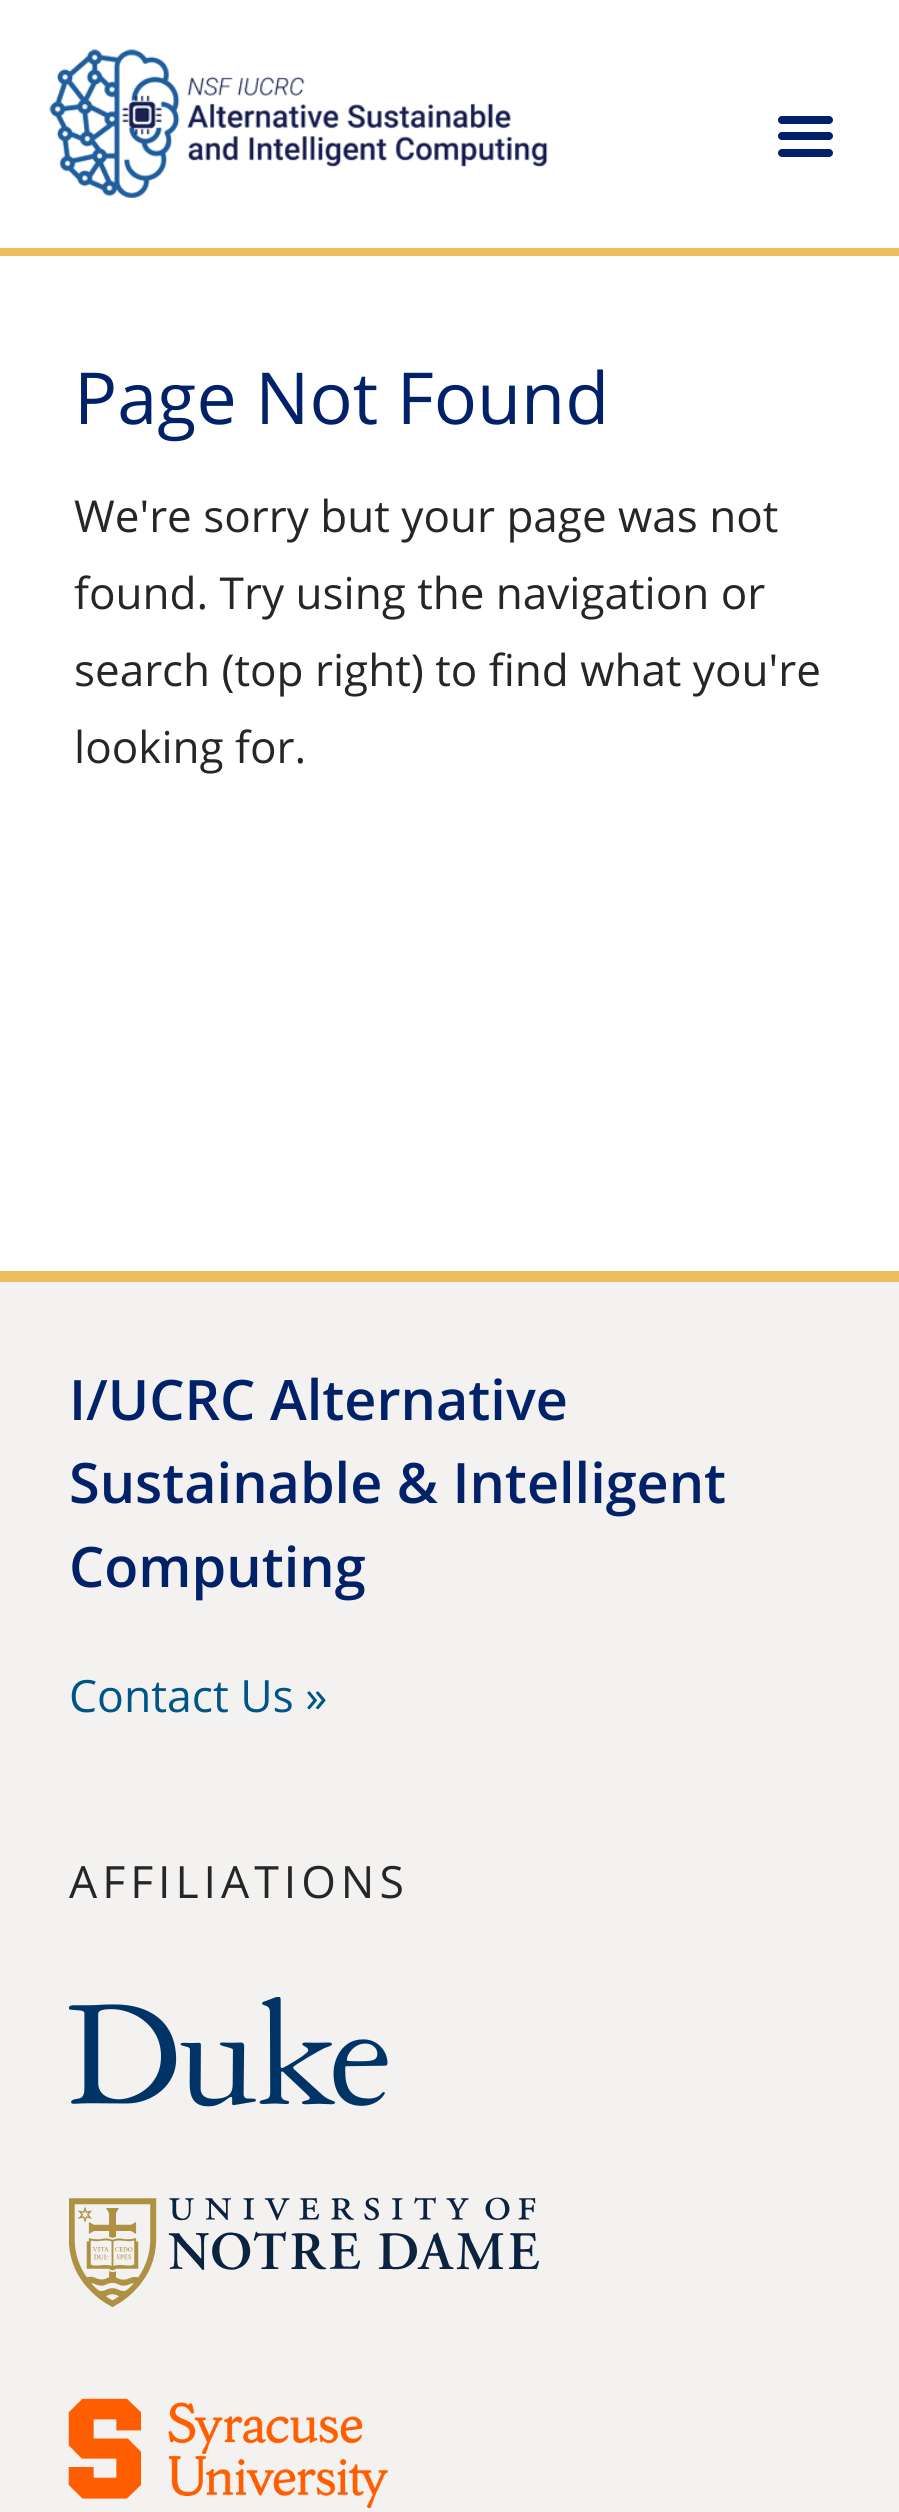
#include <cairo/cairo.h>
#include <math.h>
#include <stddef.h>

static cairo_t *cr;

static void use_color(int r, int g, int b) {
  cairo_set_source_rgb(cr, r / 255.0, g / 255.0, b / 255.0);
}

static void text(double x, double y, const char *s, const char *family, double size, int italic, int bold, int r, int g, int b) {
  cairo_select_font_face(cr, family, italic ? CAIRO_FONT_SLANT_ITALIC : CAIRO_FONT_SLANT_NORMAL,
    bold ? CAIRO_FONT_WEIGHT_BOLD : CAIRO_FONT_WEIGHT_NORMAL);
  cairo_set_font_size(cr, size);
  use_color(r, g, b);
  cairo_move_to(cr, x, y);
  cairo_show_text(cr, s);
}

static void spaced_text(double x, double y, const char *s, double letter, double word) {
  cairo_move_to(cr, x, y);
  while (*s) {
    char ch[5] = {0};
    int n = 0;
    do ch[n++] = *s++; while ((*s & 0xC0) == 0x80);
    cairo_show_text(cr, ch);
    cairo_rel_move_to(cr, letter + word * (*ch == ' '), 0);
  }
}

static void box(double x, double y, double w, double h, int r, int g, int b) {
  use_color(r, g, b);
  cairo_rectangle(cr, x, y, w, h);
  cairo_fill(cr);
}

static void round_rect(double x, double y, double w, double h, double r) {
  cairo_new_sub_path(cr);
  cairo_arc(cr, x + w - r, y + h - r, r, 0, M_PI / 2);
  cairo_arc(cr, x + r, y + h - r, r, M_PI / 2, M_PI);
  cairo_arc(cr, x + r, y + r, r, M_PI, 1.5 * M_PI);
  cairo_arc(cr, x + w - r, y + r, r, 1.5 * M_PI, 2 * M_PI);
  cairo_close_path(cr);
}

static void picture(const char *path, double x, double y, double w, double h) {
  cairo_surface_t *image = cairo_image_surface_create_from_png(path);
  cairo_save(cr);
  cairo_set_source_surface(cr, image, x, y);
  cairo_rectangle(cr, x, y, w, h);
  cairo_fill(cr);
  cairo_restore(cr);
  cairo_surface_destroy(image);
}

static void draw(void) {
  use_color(255, 255, 255);
  cairo_paint(cr);
  box(0, 248, 899, 8, 238, 189, 96);
  picture("img_01.png", 49, 49, 499, 149);
  use_color(1, 33, 105);
  round_rect(778, 116, 55, 8, 4);
  cairo_fill(cr);
  round_rect(778, 132, 55, 8, 4);
  cairo_fill(cr);
  round_rect(778, 149, 55, 8, 4);
  cairo_fill(cr);
  box(0, 1282, 899, 1230, 243, 242, 241);
  box(0, 1271, 899, 11, 238, 189, 96);
  picture("img_02.png", 69, 1997, 319, 110);
  picture("img_03.png", 69, 2197, 470, 110);
  picture("img_04.png", 68, 2398, 320, 110);
  text(74, 424, "Page Not Found", "Open Sans", 71.75, 0, 0, 1, 33, 105);
  text(74, 532, "We're sorry but your page was not", "Open Sans", 44, 0, 0, 38, 38, 38);
  text(74, 609, "found. Try using the navigation or", "Open Sans", 44, 0, 0, 38, 38, 38);
  text(74, 686, "search (top right) to find what you're", "Open Sans", 44, 0, 0, 38, 38, 38);
  text(74, 763, "looking for.", "Open Sans", 44, 0, 0, 38, 38, 38);
  text(69, 1420, "I/UCRC Alternative", "Open Sans SemiBold", 55.75, 0, 0, 1, 33, 105);
  text(69, 1503, "Sustainable & Intelligent", "Open Sans SemiBold", 55.75, 0, 0, 1, 33, 105);
  text(69, 1587, "Computing", "Open Sans SemiBold", 55.75, 0, 0, 1, 33, 105);
  text(69, 1712, "Contact Us »", "Open Sans", 44.5, 0, 0, 0, 85, 135);
  use_color(38, 38, 38);
  spaced_text(69, 1898, "AFFILIATIONS", 5, 0);
}

int main(void) {
  cairo_surface_t *surface = cairo_image_surface_create(CAIRO_FORMAT_RGB24, 899, 2512);
  cr = cairo_create(surface);
  cairo_font_options_t *options = cairo_font_options_create();
  cairo_font_options_set_hint_metrics(options, CAIRO_HINT_METRICS_OFF);
  cairo_font_options_set_hint_style(options, CAIRO_HINT_STYLE_NONE);
  cairo_set_font_options(cr, options);
  cairo_set_miter_limit(cr, 4);
  draw();
  cairo_surface_write_to_png(surface, "out.png");
  cairo_font_options_destroy(options);
  cairo_destroy(cr);
  cairo_surface_destroy(surface);
  return 0;
}
